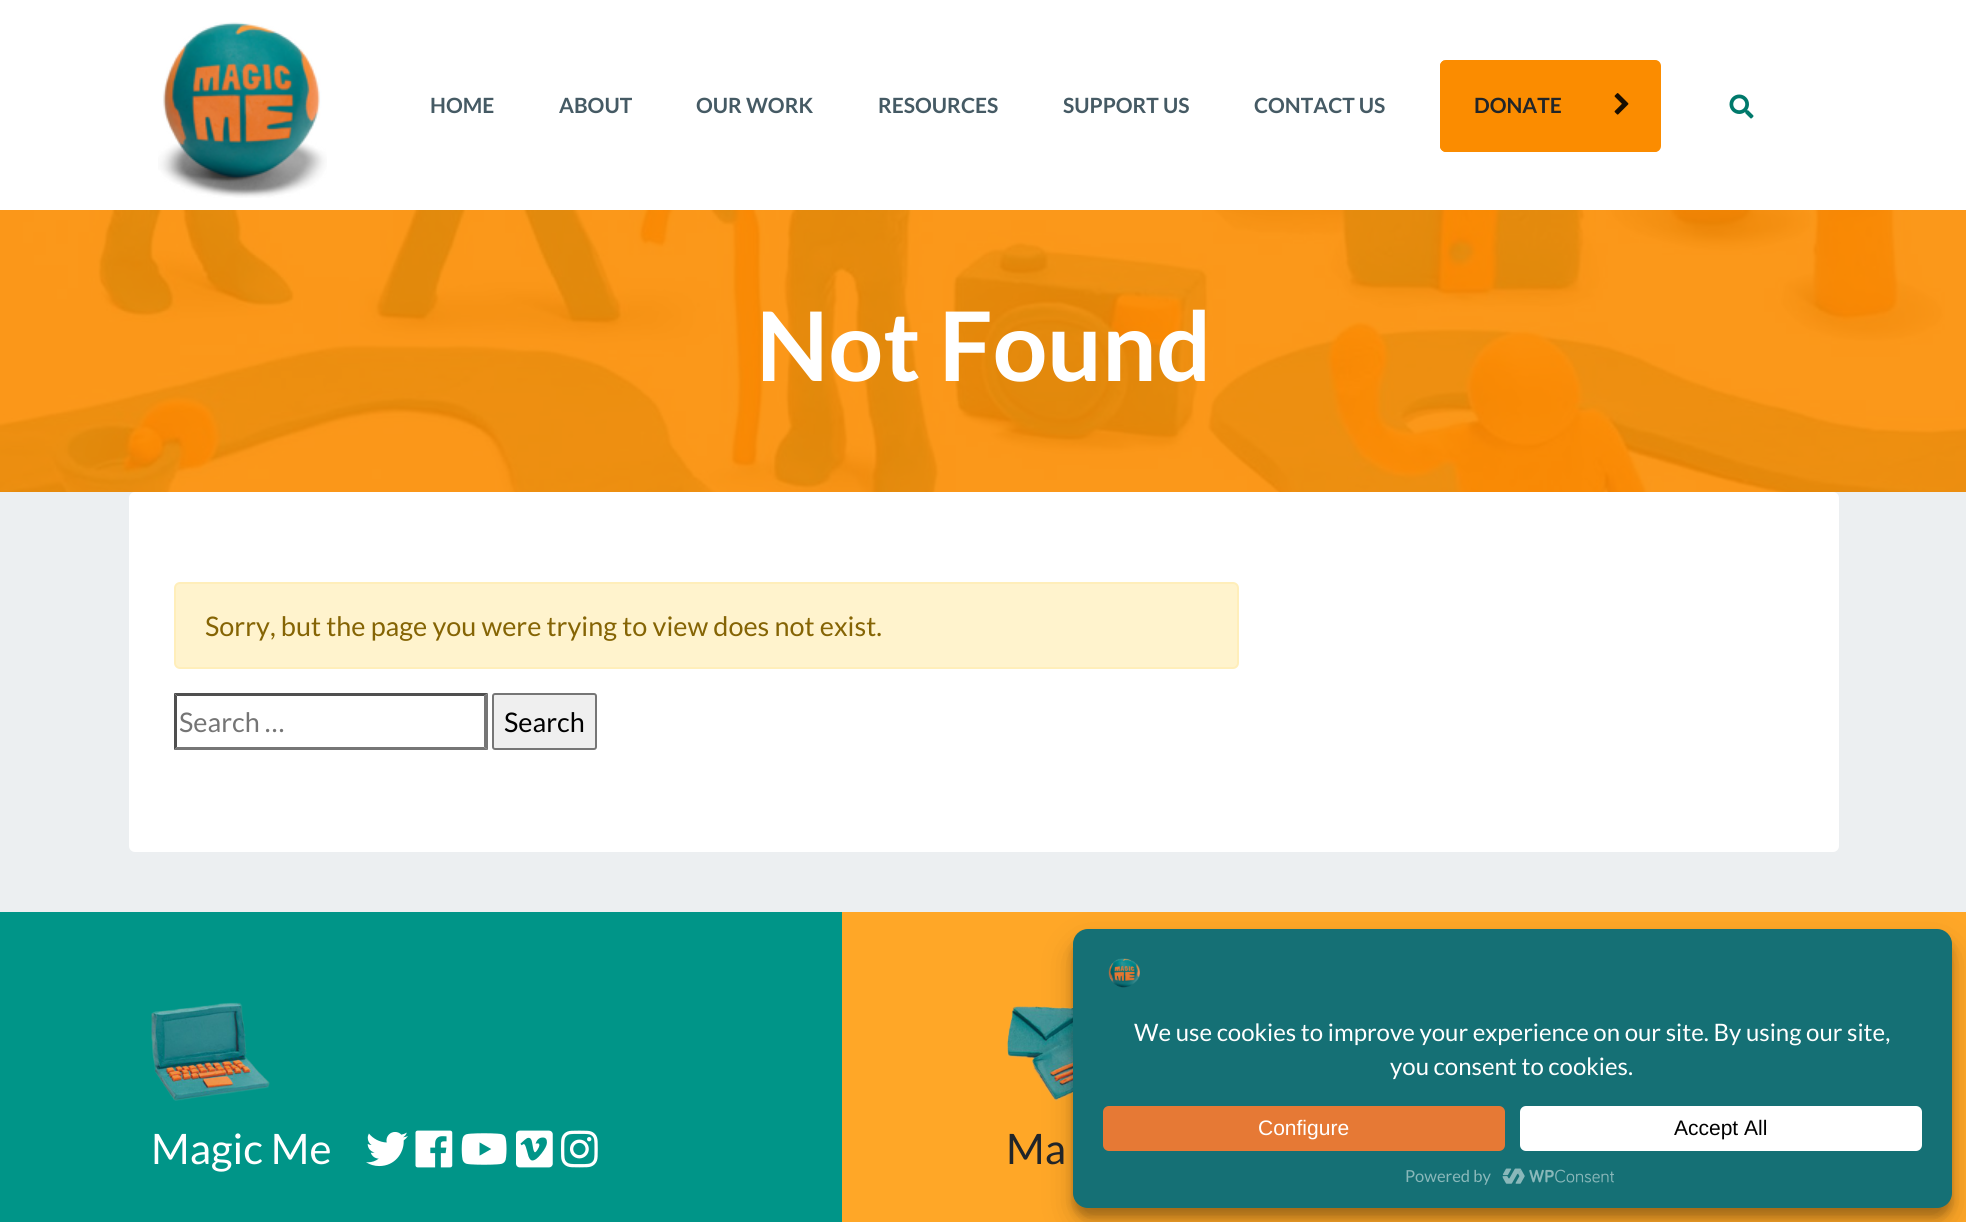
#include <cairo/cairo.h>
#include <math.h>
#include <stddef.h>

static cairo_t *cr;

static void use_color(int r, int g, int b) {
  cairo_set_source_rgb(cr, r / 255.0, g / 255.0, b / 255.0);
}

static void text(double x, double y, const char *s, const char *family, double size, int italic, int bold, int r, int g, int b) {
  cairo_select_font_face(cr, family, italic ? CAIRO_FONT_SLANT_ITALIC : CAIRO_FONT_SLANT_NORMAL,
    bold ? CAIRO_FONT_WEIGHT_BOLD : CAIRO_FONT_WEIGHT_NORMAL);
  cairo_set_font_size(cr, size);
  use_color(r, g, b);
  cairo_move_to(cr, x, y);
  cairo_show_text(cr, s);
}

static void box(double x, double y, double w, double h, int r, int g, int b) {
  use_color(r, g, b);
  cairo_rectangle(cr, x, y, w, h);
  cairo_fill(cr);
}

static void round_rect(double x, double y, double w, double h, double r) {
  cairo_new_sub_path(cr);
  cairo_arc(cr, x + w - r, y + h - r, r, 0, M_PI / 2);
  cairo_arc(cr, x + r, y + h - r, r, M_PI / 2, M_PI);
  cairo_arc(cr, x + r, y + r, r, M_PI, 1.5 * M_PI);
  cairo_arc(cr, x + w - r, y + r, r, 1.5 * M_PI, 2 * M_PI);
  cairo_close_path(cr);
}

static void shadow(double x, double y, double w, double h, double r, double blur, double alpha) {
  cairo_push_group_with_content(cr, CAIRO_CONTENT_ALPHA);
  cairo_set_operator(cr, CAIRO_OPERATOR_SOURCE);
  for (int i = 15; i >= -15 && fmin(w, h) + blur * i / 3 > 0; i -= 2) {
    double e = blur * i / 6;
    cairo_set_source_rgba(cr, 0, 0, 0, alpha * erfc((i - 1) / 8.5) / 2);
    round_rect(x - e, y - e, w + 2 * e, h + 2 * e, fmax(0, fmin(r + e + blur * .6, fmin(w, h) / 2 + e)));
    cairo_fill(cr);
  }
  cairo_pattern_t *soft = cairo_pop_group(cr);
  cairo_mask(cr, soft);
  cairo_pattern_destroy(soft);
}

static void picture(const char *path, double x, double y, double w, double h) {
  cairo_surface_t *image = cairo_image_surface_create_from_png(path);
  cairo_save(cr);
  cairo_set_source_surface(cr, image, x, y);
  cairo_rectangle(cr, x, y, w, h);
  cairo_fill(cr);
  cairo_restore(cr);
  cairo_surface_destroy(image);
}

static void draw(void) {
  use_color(236, 239, 241);
  cairo_paint(cr);
  box(0, 0, 1966, 210, 255, 255, 255);
  picture("img_01.png", 158, 22, 169, 176);
  use_color(251, 140, 0);
  round_rect(1440, 60, 221, 92, 6);
  cairo_fill(cr);
  cairo_set_fill_rule(cr, CAIRO_FILL_RULE_EVEN_ODD);
  cairo_new_path(cr);
  cairo_move_to(cr, 1446, 60);
  cairo_line_to(cr, 1654, 60);
  cairo_curve_to(cr, 1658, 60, 1660, 63, 1660, 66);
  cairo_line_to(cr, 1660, 146);
  cairo_curve_to(cr, 1660, 149, 1658, 152, 1654, 152);
  cairo_line_to(cr, 1446, 152);
  cairo_curve_to(cr, 1443, 152, 1440, 149, 1440, 146);
  cairo_line_to(cr, 1440, 66);
  cairo_curve_to(cr, 1440, 63, 1443, 60, 1446, 60);
  cairo_close_path(cr);
  cairo_move_to(cr, 1446, 60);
  cairo_line_to(cr, 1654, 60);
  cairo_curve_to(cr, 1657, 60, 1659, 63, 1659, 66);
  cairo_line_to(cr, 1659, 146);
  cairo_curve_to(cr, 1659, 148, 1657, 150, 1654, 150);
  cairo_line_to(cr, 1446, 150);
  cairo_curve_to(cr, 1444, 150, 1442, 148, 1442, 146);
  cairo_line_to(cr, 1442, 66);
  cairo_curve_to(cr, 1442, 63, 1444, 60, 1446, 60);
  cairo_close_path(cr);
  cairo_fill(cr);
  picture("img_02.png", 1614, 93, 15, 22);
  picture("img_03.png", 1729, 94, 25, 25);
  picture("img_04.png", 0, 210, 1966, 282);
  use_color(255, 255, 255);
  round_rect(129, 492, 1710, 360, 6);
  cairo_fill(cr);
  use_color(255, 243, 205);
  round_rect(175, 583, 1063, 85, 5);
  cairo_fill_preserve(cr);
  use_color(255, 238, 186);
  cairo_stroke(cr);
  use_color(79, 79, 79);
  cairo_set_fill_rule(cr, CAIRO_FILL_RULE_WINDING);
  cairo_new_path(cr);
  cairo_move_to(cr, 174, 693);
  cairo_line_to(cr, 488, 693);
  cairo_line_to(cr, 484, 696);
  cairo_line_to(cr, 177, 696);
  cairo_close_path(cr);
  cairo_fill(cr);
  use_color(118, 118, 118);
  cairo_new_path(cr);
  cairo_move_to(cr, 488, 693);
  cairo_line_to(cr, 488, 750);
  cairo_line_to(cr, 484, 747);
  cairo_line_to(cr, 484, 696);
  cairo_close_path(cr);
  cairo_fill(cr);
  cairo_new_path(cr);
  cairo_move_to(cr, 488, 750);
  cairo_line_to(cr, 174, 750);
  cairo_line_to(cr, 177, 747);
  cairo_line_to(cr, 484, 747);
  cairo_close_path(cr);
  cairo_fill(cr);
  use_color(79, 79, 79);
  cairo_new_path(cr);
  cairo_move_to(cr, 174, 750);
  cairo_line_to(cr, 174, 693);
  cairo_line_to(cr, 177, 696);
  cairo_line_to(cr, 177, 747);
  cairo_close_path(cr);
  cairo_fill(cr);
  use_color(239, 239, 239);
  round_rect(493, 694, 103, 55, 2);
  cairo_fill_preserve(cr);
  use_color(118, 118, 118);
  cairo_stroke(cr);
  box(842, 912, 1124, 310, 255, 167, 39);
  box(0, 912, 842, 310, 0, 149, 136);
  picture("img_05.png", 151, 1002, 119, 99);
  picture("img_06.png", 366, 1132, 42, 35);
  picture("img_07.png", 415, 1130, 38, 38);
  picture("img_08.png", 461, 1133, 46, 32);
  picture("img_09.png", 516, 1130, 37, 38);
  picture("img_10.png", 561, 1130, 37, 38);
  picture("img_11.png", 1007, 1006, 66, 95);
  use_color(0, 0, 0);
  shadow(1073, 938, 879, 279, 15, 4.5, 0.23);
  shadow(1073, 944, 879, 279, 15, 15, 0.19);
  use_color(21, 112, 117);
  round_rect(1073, 929, 879, 279, 15);
  cairo_fill(cr);
  picture("img_12.png", 1108, 958, 32, 30);
  use_color(230, 121, 53);
  round_rect(1103, 1106, 402, 45, 6);
  cairo_fill(cr);
  use_color(255, 255, 255);
  round_rect(1520, 1106, 402, 45, 6);
  cairo_fill(cr);
  picture("img_13.png", 1502, 1168, 112, 16);
  text(430, 113, "HOME", "Lato", 21, 0, 1, 69, 90, 100);
  text(559, 113, "ABOUT", "Lato", 21, 0, 1, 69, 90, 100);
  text(696, 113, "OUR WORK", "Lato", 21, 0, 1, 69, 90, 100);
  text(878, 113, "RESOURCES", "Lato", 21, 0, 1, 69, 90, 100);
  text(1063, 113, "SUPPORT US", "Lato", 21, 0, 1, 69, 90, 100);
  text(1254, 113, "CONTACT US", "Lato", 21, 0, 1, 69, 90, 100);
  text(1474, 113, "DONATE", "Lato", 21, 0, 1, 33, 37, 41);
  text(756, 381, "Not Found", "Lato", 96, 0, 1, 255, 255, 255);
  text(205, 636, "Sorry, but the page you were trying to view does not exist.", "Lato", 27, 0, 0, 133, 100, 4);
  text(179, 732, "Search …", "Lato", 27, 0, 0, 117, 117, 117);
  text(504, 732, "Search", "Lato", 27, 0, 0, 0, 0, 0);
  text(151, 1164, "Magic Me", "Lato", 42, 0, 0, 255, 255, 255);
  text(1006, 1164, "Ma", "Lato", 42, 0, 0, 33, 37, 41);
  text(1134, 1041, "We use cookies to improve your experience on our site. By using our site,", "Lato", 24, 0, 0, 255, 255, 255);
  text(1390, 1075, "you consent to cookies.", "Lato", 24, 0, 0, 255, 255, 255);
  text(1258, 1135, "Configure", "Liberation Sans", 21, 0, 0, 255, 255, 255);
  text(1674, 1135, "Accept All", "Liberation Sans", 21, 0, 0, 0, 0, 0);
  text(1405, 1182, "Powered by", "Lato", 16.5, 0, 0, 138, 184, 186);
}

int main(void) {
  cairo_surface_t *surface = cairo_image_surface_create(CAIRO_FORMAT_RGB24, 1966, 1222);
  cr = cairo_create(surface);
  cairo_font_options_t *options = cairo_font_options_create();
  cairo_font_options_set_hint_metrics(options, CAIRO_HINT_METRICS_OFF);
  cairo_font_options_set_hint_style(options, CAIRO_HINT_STYLE_NONE);
  cairo_set_font_options(cr, options);
  cairo_set_miter_limit(cr, 4);
  draw();
  cairo_surface_write_to_png(surface, "out.png");
  cairo_font_options_destroy(options);
  cairo_destroy(cr);
  cairo_surface_destroy(surface);
  return 0;
}
